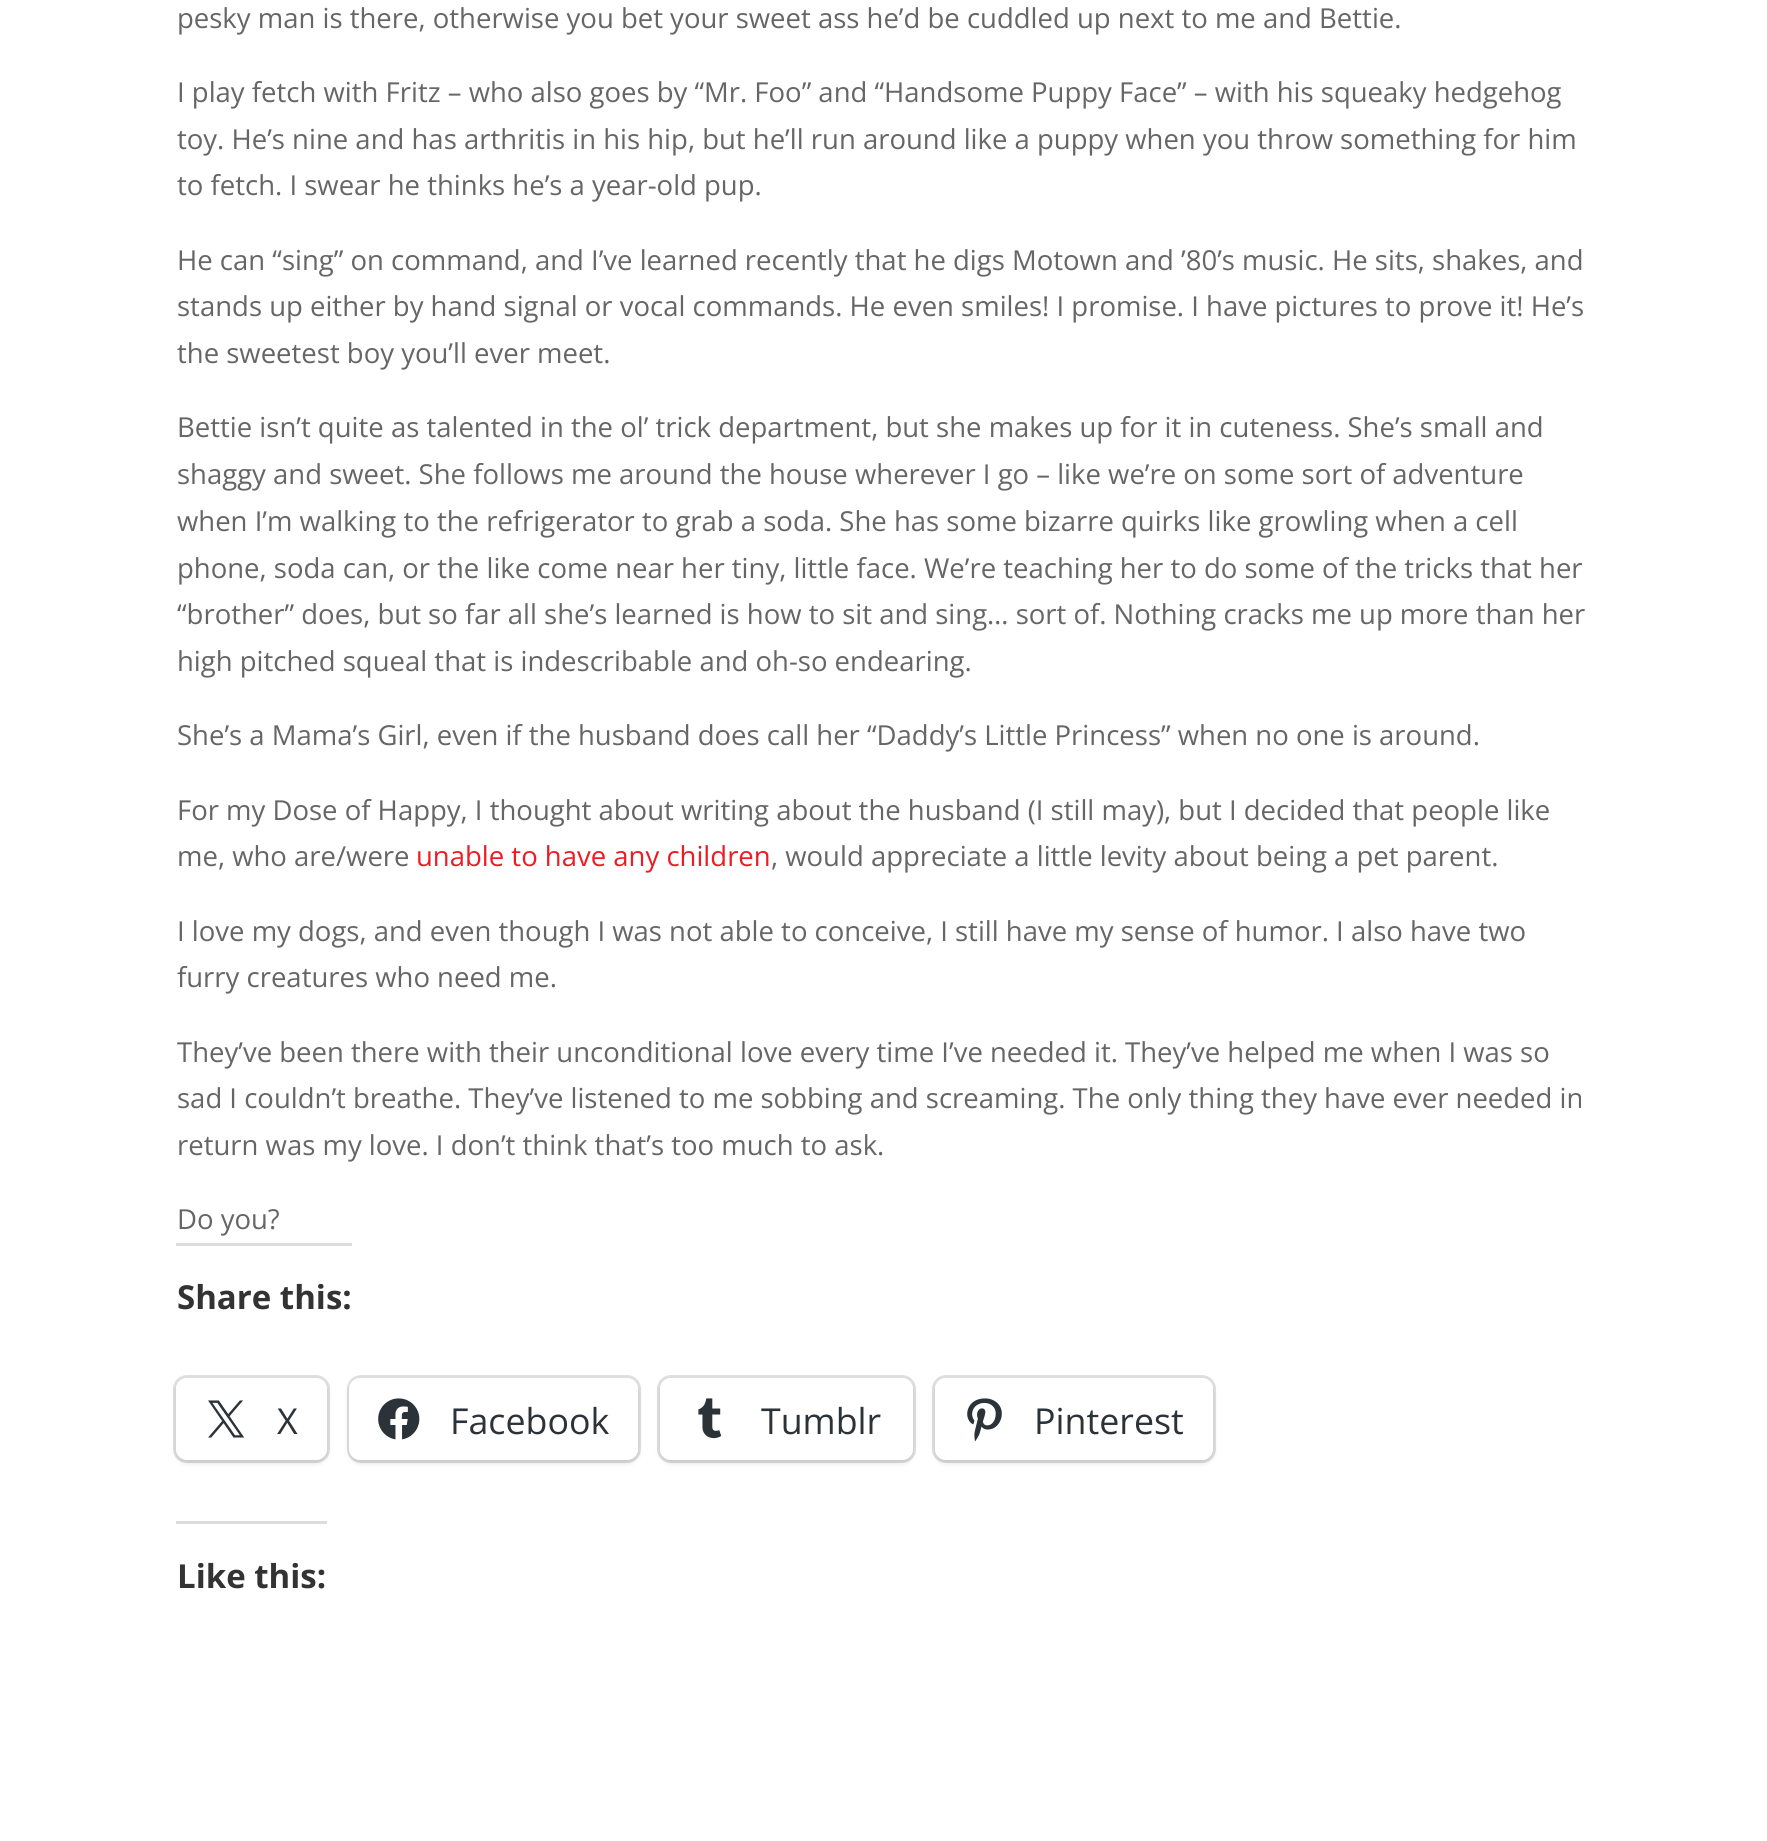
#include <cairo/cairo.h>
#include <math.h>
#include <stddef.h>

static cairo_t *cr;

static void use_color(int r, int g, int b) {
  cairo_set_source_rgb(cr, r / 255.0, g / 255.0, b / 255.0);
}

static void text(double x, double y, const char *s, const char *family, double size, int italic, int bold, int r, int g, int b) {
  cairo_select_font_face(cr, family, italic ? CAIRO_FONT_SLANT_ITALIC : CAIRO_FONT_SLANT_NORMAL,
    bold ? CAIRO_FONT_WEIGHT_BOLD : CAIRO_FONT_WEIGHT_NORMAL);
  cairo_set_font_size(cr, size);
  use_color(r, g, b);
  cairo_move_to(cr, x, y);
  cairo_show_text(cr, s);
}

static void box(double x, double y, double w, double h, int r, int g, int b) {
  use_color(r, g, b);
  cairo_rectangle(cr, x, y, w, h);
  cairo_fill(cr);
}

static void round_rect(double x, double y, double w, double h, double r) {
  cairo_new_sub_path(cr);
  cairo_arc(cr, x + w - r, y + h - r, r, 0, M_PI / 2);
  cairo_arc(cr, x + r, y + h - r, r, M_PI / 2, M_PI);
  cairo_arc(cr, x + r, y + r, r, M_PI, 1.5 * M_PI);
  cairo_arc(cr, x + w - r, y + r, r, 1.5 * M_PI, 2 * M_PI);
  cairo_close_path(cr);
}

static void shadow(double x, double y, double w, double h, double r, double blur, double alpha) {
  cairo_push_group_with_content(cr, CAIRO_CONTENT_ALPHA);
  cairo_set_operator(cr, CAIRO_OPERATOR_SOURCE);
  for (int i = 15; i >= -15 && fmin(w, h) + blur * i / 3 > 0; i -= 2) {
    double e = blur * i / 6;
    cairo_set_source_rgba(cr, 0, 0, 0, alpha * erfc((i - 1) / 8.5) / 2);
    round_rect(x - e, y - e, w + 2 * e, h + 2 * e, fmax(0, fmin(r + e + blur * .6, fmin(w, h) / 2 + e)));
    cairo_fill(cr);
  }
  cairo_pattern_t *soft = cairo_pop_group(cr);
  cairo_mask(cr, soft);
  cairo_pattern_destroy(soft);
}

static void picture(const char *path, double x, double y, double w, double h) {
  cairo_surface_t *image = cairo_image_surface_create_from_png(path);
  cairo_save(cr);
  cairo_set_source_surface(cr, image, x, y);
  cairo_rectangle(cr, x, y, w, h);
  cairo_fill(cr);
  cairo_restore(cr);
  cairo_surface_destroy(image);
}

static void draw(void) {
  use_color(255, 255, 255);
  cairo_paint(cr);
  box(176, 1243, 176, 3, 220, 220, 222);
  round_rect(174.5, 1376.5, 154, 85, 12.5);
  use_color(224, 224, 224);
  cairo_set_line_width(cr, 3);
  cairo_stroke(cr);
  use_color(0, 0, 0);
  shadow(176, 1381, 151, 82, 11, 3, 0.12);
  use_color(255, 255, 255);
  round_rect(176, 1378, 151, 82, 11);
  cairo_fill(cr);
  picture("img_01.png", 208, 1400, 37, 38);
  round_rect(348.5, 1376.5, 291, 85, 12.5);
  use_color(224, 224, 224);
  cairo_stroke(cr);
  use_color(0, 0, 0);
  shadow(349, 1381, 289, 82, 11, 3, 0.12);
  use_color(255, 255, 255);
  round_rect(349, 1378, 289, 82, 11);
  cairo_fill(cr);
  picture("img_02.png", 378, 1398, 42, 42);
  round_rect(658.5, 1376.5, 256, 85, 12.5);
  use_color(224, 224, 224);
  cairo_stroke(cr);
  use_color(0, 0, 0);
  shadow(660, 1381, 253, 82, 11, 3, 0.12);
  use_color(255, 255, 255);
  round_rect(660, 1378, 253, 82, 11);
  cairo_fill(cr);
  picture("img_03.png", 698, 1398, 24, 41);
  round_rect(933.5, 1376.5, 281, 85, 12.5);
  use_color(224, 224, 224);
  cairo_stroke(cr);
  use_color(0, 0, 0);
  shadow(935, 1381, 278, 82, 11, 3, 0.12);
  use_color(255, 255, 255);
  round_rect(935, 1378, 278, 82, 11);
  cairo_fill(cr);
  picture("img_04.png", 967, 1398, 35, 44);
  box(176, 1521, 151, 3, 220, 220, 222);
  text(177, 28, "pesky man is there, otherwise you bet your sweet ass he’d be cuddled up next to me and Bettie.", "Open Sans", 27.5, 0, 0, 102, 102, 102);
  text(177, 102, "I play fetch with Fritz – who also goes by “Mr. Foo” and “Handsome Puppy Face” – with his squeaky hedgehog", "Open Sans", 27.5, 0, 0, 102, 102, 102);
  text(177, 149, "toy. He’s nine and has arthritis in his hip, but he’ll run around like a puppy when you throw something for him", "Open Sans", 27.5, 0, 0, 102, 102, 102);
  text(177, 195, "to fetch. I swear he thinks he’s a year-old pup.", "Open Sans", 27.5, 0, 0, 102, 102, 102);
  text(177, 270, "He can “sing” on command, and I’ve learned recently that he digs Motown and ’80’s music. He sits, shakes, and", "Open Sans", 27.5, 0, 0, 102, 102, 102);
  text(177, 316, "stands up either by hand signal or vocal commands. He even smiles! I promise. I have pictures to prove it! He’s", "Open Sans", 27.5, 0, 0, 102, 102, 102);
  text(177, 363, "the sweetest boy you’ll ever meet.", "Open Sans", 27.5, 0, 0, 102, 102, 102);
  text(177, 437, "Bettie isn’t quite as talented in the ol’ trick department, but she makes up for it in cuteness. She’s small and", "Open Sans", 27.5, 0, 0, 102, 102, 102);
  text(177, 484, "shaggy and sweet. She follows me around the house wherever I go – like we’re on some sort of adventure", "Open Sans", 27.5, 0, 0, 102, 102, 102);
  text(177, 531, "when I’m walking to the refrigerator to grab a soda. She has some bizarre quirks like growling when a cell", "Open Sans", 27.5, 0, 0, 102, 102, 102);
  text(177, 578, "phone, soda can, or the like come near her tiny, little face. We’re teaching her to do some of the tricks that her", "Open Sans", 27.5, 0, 0, 102, 102, 102);
  text(177, 624, "“brother” does, but so far all she’s learned is how to sit and sing… sort of. Nothing cracks me up more than her", "Open Sans", 27.5, 0, 0, 102, 102, 102);
  text(177, 671, "high pitched squeal that is indescribable and oh-so endearing.", "Open Sans", 27.5, 0, 0, 102, 102, 102);
  text(177, 745, "She’s a Mama’s Girl, even if the husband does call her “Daddy’s Little Princess” when no one is around.", "Open Sans", 27.5, 0, 0, 102, 102, 102);
  text(177, 820, "For my Dose of Happy, I thought about writing about the husband (I still may), but I decided that people like", "Open Sans", 27.5, 0, 0, 102, 102, 102);
  text(177, 866, "me, who are/were", "Open Sans", 27.5, 0, 0, 102, 102, 102);
  text(416, 866, "unable to have any children", "Open Sans", 27.5, 0, 0, 237, 28, 36);
  text(771, 866, ", would appreciate a little levity about being a pet parent.", "Open Sans", 27.5, 0, 0, 102, 102, 102);
  text(177, 941, "I love my dogs, and even though I was not able to conceive, I still have my sense of humor. I also have two", "Open Sans", 27.5, 0, 0, 102, 102, 102);
  text(177, 987, "furry creatures who need me.", "Open Sans", 27.5, 0, 0, 102, 102, 102);
  text(177, 1062, "They’ve been there with their unconditional love every time I’ve needed it. They’ve helped me when I was so", "Open Sans", 27.5, 0, 0, 102, 102, 102);
  text(177, 1108, "sad I couldn’t breathe. They’ve listened to me sobbing and screaming. The only thing they have ever needed in", "Open Sans", 27.5, 0, 0, 102, 102, 102);
  text(177, 1155, "return was my love. I don’t think that’s too much to ask.", "Open Sans", 27.5, 0, 0, 102, 102, 102);
  text(177, 1229, "Do you?", "Open Sans", 27.5, 0, 0, 102, 102, 102);
  text(177, 1309, "Share this:", "Open Sans", 33, 0, 1, 51, 51, 51);
  text(277, 1434, "X", "Open Sans", 35.75, 0, 0, 44, 51, 56);
  text(450, 1434, "Facebook", "Open Sans", 35.75, 0, 0, 44, 51, 56);
  text(761, 1434, "Tumblr", "Open Sans", 35.75, 0, 0, 44, 51, 56);
  text(1034, 1434, "Pinterest", "Open Sans", 35.75, 0, 0, 44, 51, 56);
  text(177, 1588, "Like this:", "Open Sans", 33, 0, 1, 51, 51, 51);
}

int main(void) {
  cairo_surface_t *surface = cairo_image_surface_create(CAIRO_FORMAT_RGB24, 1767, 1841);
  cr = cairo_create(surface);
  cairo_font_options_t *options = cairo_font_options_create();
  cairo_font_options_set_hint_metrics(options, CAIRO_HINT_METRICS_OFF);
  cairo_font_options_set_hint_style(options, CAIRO_HINT_STYLE_NONE);
  cairo_set_font_options(cr, options);
  cairo_set_miter_limit(cr, 4);
  draw();
  cairo_surface_write_to_png(surface, "out.png");
  cairo_font_options_destroy(options);
  cairo_destroy(cr);
  cairo_surface_destroy(surface);
  return 0;
}
